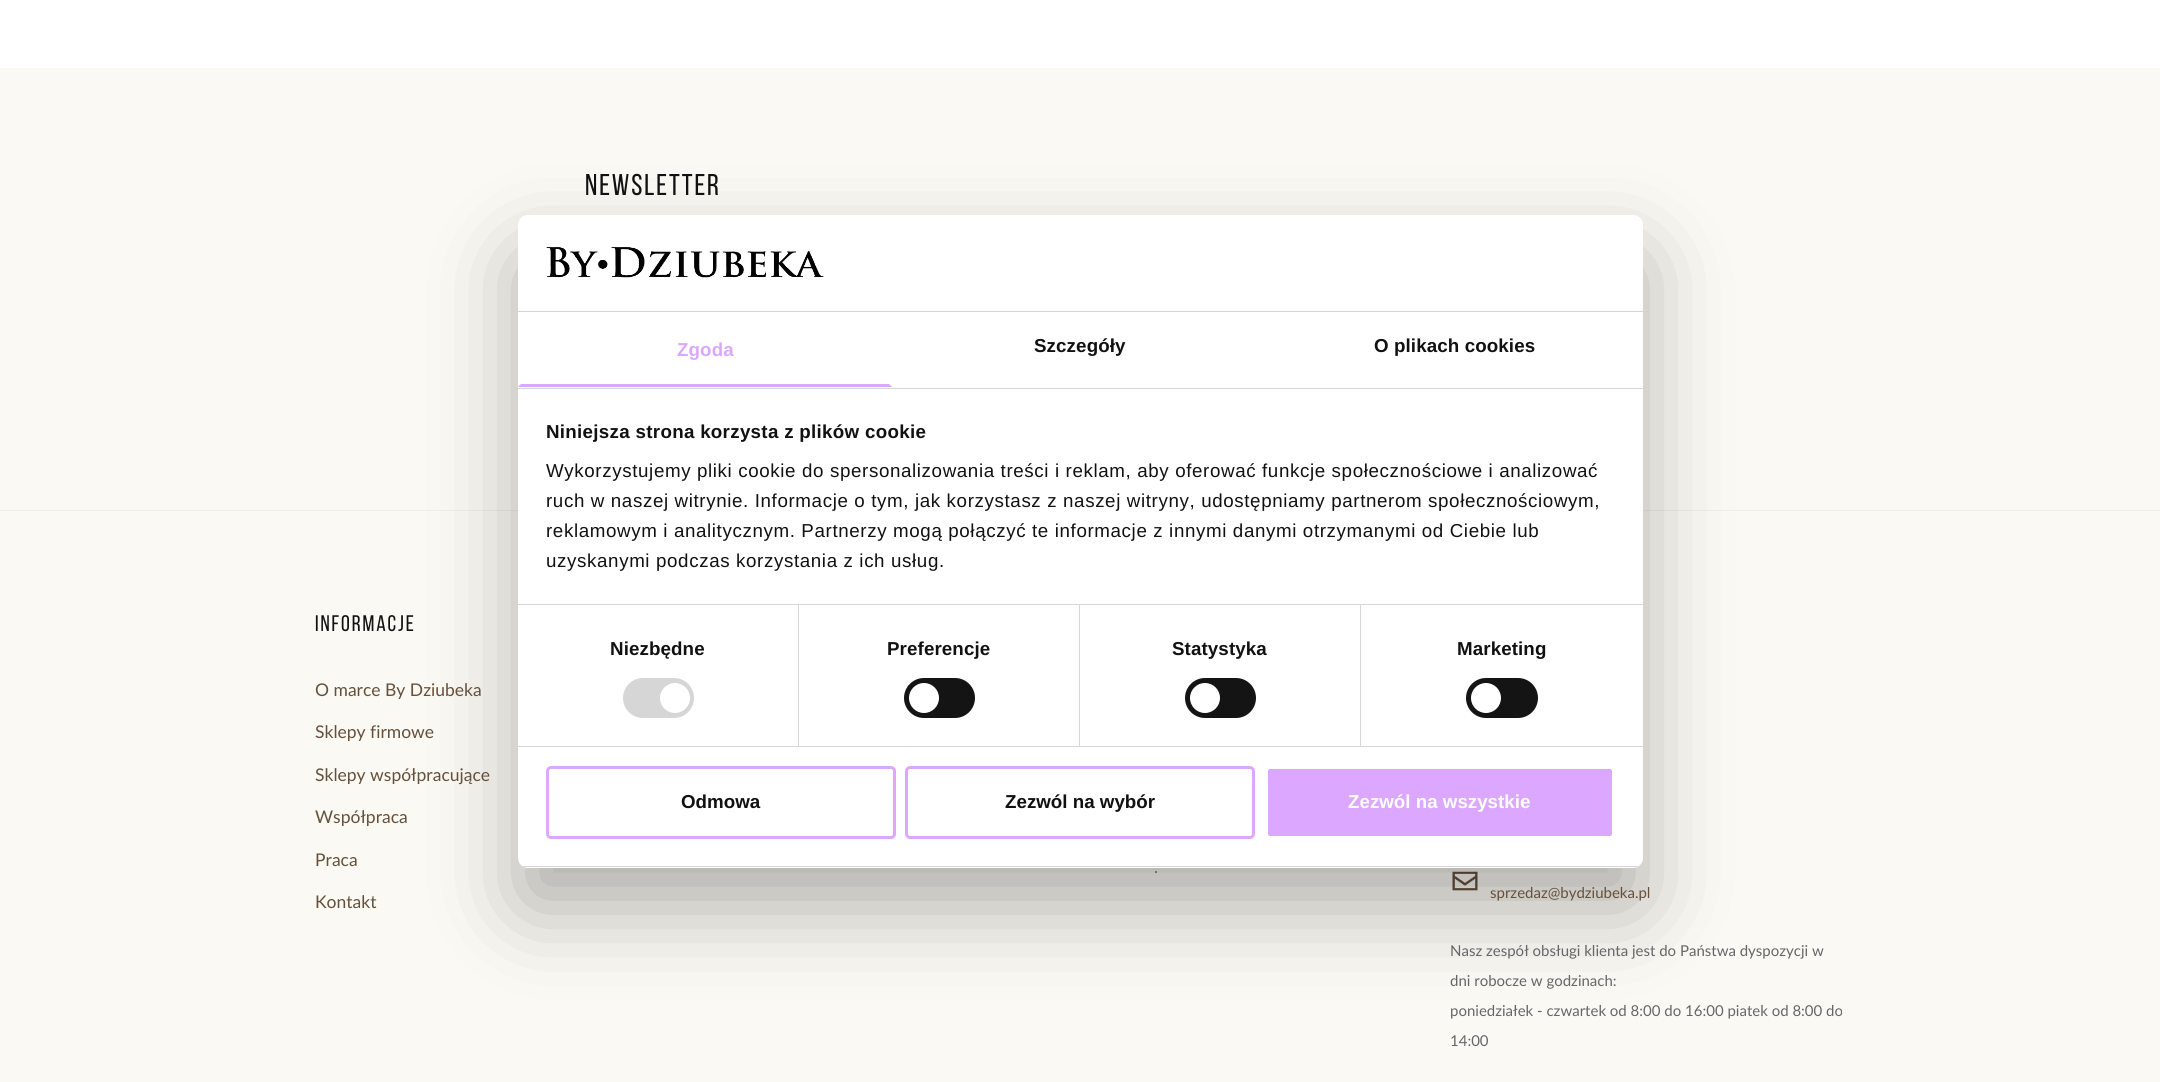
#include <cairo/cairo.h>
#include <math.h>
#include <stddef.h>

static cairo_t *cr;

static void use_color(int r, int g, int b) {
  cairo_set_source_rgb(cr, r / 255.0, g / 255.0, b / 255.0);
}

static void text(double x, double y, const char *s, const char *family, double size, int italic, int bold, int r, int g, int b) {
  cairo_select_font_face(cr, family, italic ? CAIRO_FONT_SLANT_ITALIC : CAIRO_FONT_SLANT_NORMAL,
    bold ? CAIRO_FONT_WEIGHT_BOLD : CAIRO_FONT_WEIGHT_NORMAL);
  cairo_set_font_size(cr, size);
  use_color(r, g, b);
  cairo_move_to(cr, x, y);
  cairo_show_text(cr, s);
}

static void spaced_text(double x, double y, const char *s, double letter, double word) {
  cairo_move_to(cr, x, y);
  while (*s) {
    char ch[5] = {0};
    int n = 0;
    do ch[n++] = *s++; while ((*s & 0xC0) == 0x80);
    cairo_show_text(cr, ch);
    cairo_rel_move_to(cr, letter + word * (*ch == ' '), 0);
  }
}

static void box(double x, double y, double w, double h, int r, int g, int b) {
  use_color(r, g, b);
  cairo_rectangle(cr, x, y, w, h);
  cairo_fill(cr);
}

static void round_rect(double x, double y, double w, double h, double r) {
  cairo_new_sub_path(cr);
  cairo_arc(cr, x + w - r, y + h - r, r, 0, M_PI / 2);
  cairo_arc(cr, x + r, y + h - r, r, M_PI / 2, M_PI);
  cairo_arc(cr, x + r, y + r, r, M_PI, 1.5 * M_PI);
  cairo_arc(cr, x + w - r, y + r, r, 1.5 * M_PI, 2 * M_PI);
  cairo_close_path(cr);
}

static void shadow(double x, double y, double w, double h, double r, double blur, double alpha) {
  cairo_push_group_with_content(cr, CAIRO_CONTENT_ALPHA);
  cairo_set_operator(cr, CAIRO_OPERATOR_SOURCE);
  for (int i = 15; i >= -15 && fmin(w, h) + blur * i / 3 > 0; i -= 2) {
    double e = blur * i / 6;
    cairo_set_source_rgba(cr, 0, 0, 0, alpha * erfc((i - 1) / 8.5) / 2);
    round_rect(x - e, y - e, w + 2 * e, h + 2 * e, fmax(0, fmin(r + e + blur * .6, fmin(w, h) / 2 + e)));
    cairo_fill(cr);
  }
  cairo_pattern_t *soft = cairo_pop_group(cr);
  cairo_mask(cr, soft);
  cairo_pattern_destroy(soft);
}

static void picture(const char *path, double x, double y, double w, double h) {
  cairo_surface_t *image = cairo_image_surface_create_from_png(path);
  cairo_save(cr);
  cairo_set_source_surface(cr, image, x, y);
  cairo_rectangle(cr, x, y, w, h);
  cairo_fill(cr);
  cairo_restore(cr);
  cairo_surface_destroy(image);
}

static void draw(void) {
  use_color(255, 255, 255);
  cairo_paint(cr);
  box(0, 68, 2160, 1014, 250, 249, 243);
  box(0, 510, 2160, 1, 238, 238, 238);
  picture("img_01.png", 1452, 871, 26, 20);
  use_color(0, 0, 0);
  shadow(518, 255, 1125, 653, 10, 42.5, 0.3);
  use_color(255, 255, 255);
  round_rect(518, 215, 1125, 653, 10);
  cairo_fill(cr);
  box(518, 311, 1125, 1, 214, 214, 214);
  picture("img_02.png", 546, 247, 278, 31);
  box(518, 388, 1125, 1, 214, 214, 214);
  use_color(220, 168, 255);
  cairo_new_path(cr);
  cairo_move_to(cr, 892, 387);
  cairo_line_to(cr, 518, 387);
  cairo_line_to(cr, 521, 384);
  cairo_line_to(cr, 889, 384);
  cairo_close_path(cr);
  cairo_fill(cr);
  box(518, 604, 1125, 1, 214, 214, 214);
  box(518, 746, 1125, 1, 214, 214, 214);
  box(798, 605, 1, 141, 214, 214, 214);
  round_rect(623, 678, 71, 40, 20);
  cairo_fill(cr);
  use_color(255, 255, 255);
  cairo_arc(cr, 675, 698, 15, 0, 2 * M_PI);
  cairo_fill(cr);
  box(1079, 605, 1, 141, 214, 214, 214);
  use_color(20, 20, 20);
  round_rect(904, 678, 71, 40, 20);
  cairo_fill(cr);
  use_color(255, 255, 255);
  cairo_arc(cr, 924, 698, 15, 0, 2 * M_PI);
  cairo_fill(cr);
  box(1360, 605, 1, 141, 214, 214, 214);
  use_color(20, 20, 20);
  round_rect(1185, 678, 71, 40, 20);
  cairo_fill(cr);
  use_color(255, 255, 255);
  cairo_arc(cr, 1205, 698, 15, 0, 2 * M_PI);
  cairo_fill(cr);
  use_color(20, 20, 20);
  round_rect(1466, 678, 72, 40, 20);
  cairo_fill(cr);
  use_color(255, 255, 255);
  cairo_arc(cr, 1486, 698, 15, 0, 2 * M_PI);
  cairo_fill(cr);
  cairo_save(cr);
  round_rect(518, 215, 1125, 653, 10);
  cairo_clip(cr);
  box(518, 866, 1125, 1, 214, 214, 214);
  cairo_restore(cr);
  round_rect(547.5, 767.5, 347, 70, 3.5);
  use_color(220, 168, 255);
  cairo_set_line_width(cr, 3);
  cairo_stroke(cr);
  round_rect(906.5, 767.5, 347, 70, 3.5);
  cairo_stroke(cr);
  round_rect(1266.5, 767.5, 347, 70, 3.5);
  cairo_fill_preserve(cr);
  use_color(255, 255, 255);
  cairo_stroke(cr);
  cairo_select_font_face(cr, "Bebas Neue", CAIRO_FONT_SLANT_NORMAL, CAIRO_FONT_WEIGHT_NORMAL);
  cairo_set_font_size(cr, 30);
  use_color(17, 17, 17);
  spaced_text(585, 195, "Newsletter", 1.9, 0);
  cairo_set_font_size(cr, 22.5);
  spaced_text(315, 631, "Informacje", 1.9, 0);
  text(315, 696, "O marce By Dziubeka", "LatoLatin", 17.5, 0, 0, 102, 80, 59);
  text(315, 738, "Sklepy firmowe", "LatoLatin", 17.5, 0, 0, 102, 80, 59);
  text(315, 781, "Sklepy współpracujące", "LatoLatin", 17.5, 0, 0, 102, 80, 59);
  text(315, 823, "Współpraca", "LatoLatin", 17.5, 0, 0, 102, 80, 59);
  text(315, 866, "Praca", "LatoLatin", 17.5, 0, 0, 102, 80, 59);
  text(315, 908, "Kontakt", "LatoLatin", 17.5, 0, 0, 102, 80, 59);
  text(1154, 873, ".", "LatoLatin", 17.5, 0, 0, 102, 102, 102);
  text(1490, 898, "sprzedaz@bydziubeka.pl", "LatoLatin", 15, 0, 0, 102, 80, 59);
  text(1450, 956, "Nasz zespół obsługi klienta jest do Państwa dyspozycji w", "LatoLatin", 15, 0, 0, 102, 102, 102);
  text(1450, 986, "dni robocze w godzinach:", "LatoLatin", 15, 0, 0, 102, 102, 102);
  text(1450, 1016, "poniedziałek - czwartek od 8:00 do 16:00 piatek od 8:00 do", "LatoLatin", 15, 0, 0, 102, 102, 102);
  text(1450, 1046, "14:00", "LatoLatin", 15, 0, 0, 102, 102, 102);
  cairo_select_font_face(cr, "Liberation Sans", CAIRO_FONT_SLANT_NORMAL, CAIRO_FONT_WEIGHT_BOLD);
  cairo_set_font_size(cr, 18.75);
  use_color(220, 168, 255);
  spaced_text(677, 356, "Zgoda", 0.1, 0);
  use_color(17, 17, 17);
  spaced_text(1034, 352, "Szczegóły", 0.1, 0);
  spaced_text(1374, 352, "O plikach cookies", 0.1, 0);
  spaced_text(546, 438, "Niniejsza strona korzysta z plików cookie", 0.3, 0);
  cairo_select_font_face(cr, "Liberation Sans", CAIRO_FONT_SLANT_NORMAL, CAIRO_FONT_WEIGHT_NORMAL);
  spaced_text(546, 477, "Wykorzystujemy pliki cookie do spersonalizowania treści i reklam, aby oferować funkcje społecznościowe i analizować", 0.62, 0);
  spaced_text(546, 507, "ruch w naszej witrynie. Informacje o tym, jak korzystasz z naszej witryny, udostępniamy partnerom społecznościowym,", 0.62, 0);
  spaced_text(546, 537, "reklamowym i analitycznym. Partnerzy mogą połączyć te informacje z innymi danymi otrzymanymi od Ciebie lub", 0.62, 0);
  spaced_text(546, 567, "uzyskanymi podczas korzystania z ich usług.", 0.62, 0);
  cairo_select_font_face(cr, "Liberation Sans", CAIRO_FONT_SLANT_NORMAL, CAIRO_FONT_WEIGHT_BOLD);
  spaced_text(610, 655, "Niezbędne", 0.1, 0);
  spaced_text(887, 655, "Preferencje", 0.1, 0);
  spaced_text(1172, 655, "Statystyka", 0.1, 0);
  spaced_text(1457, 655, "Marketing", 0.1, 0);
  text(681, 808, "Odmowa", "Liberation Sans", 18.75, 0, 1, 17, 17, 17);
  text(1005, 808, "Zezwól na wybór", "Liberation Sans", 18.75, 0, 1, 17, 17, 17);
  text(1348, 808, "Zezwól na wszystkie", "Liberation Sans", 18.75, 0, 1, 255, 255, 255);
}

int main(void) {
  cairo_surface_t *surface = cairo_image_surface_create(CAIRO_FORMAT_RGB24, 2160, 1082);
  cr = cairo_create(surface);
  cairo_font_options_t *options = cairo_font_options_create();
  cairo_font_options_set_hint_metrics(options, CAIRO_HINT_METRICS_OFF);
  cairo_font_options_set_hint_style(options, CAIRO_HINT_STYLE_NONE);
  cairo_set_font_options(cr, options);
  cairo_set_miter_limit(cr, 4);
  draw();
  cairo_surface_write_to_png(surface, "out.png");
  cairo_font_options_destroy(options);
  cairo_destroy(cr);
  cairo_surface_destroy(surface);
  return 0;
}
